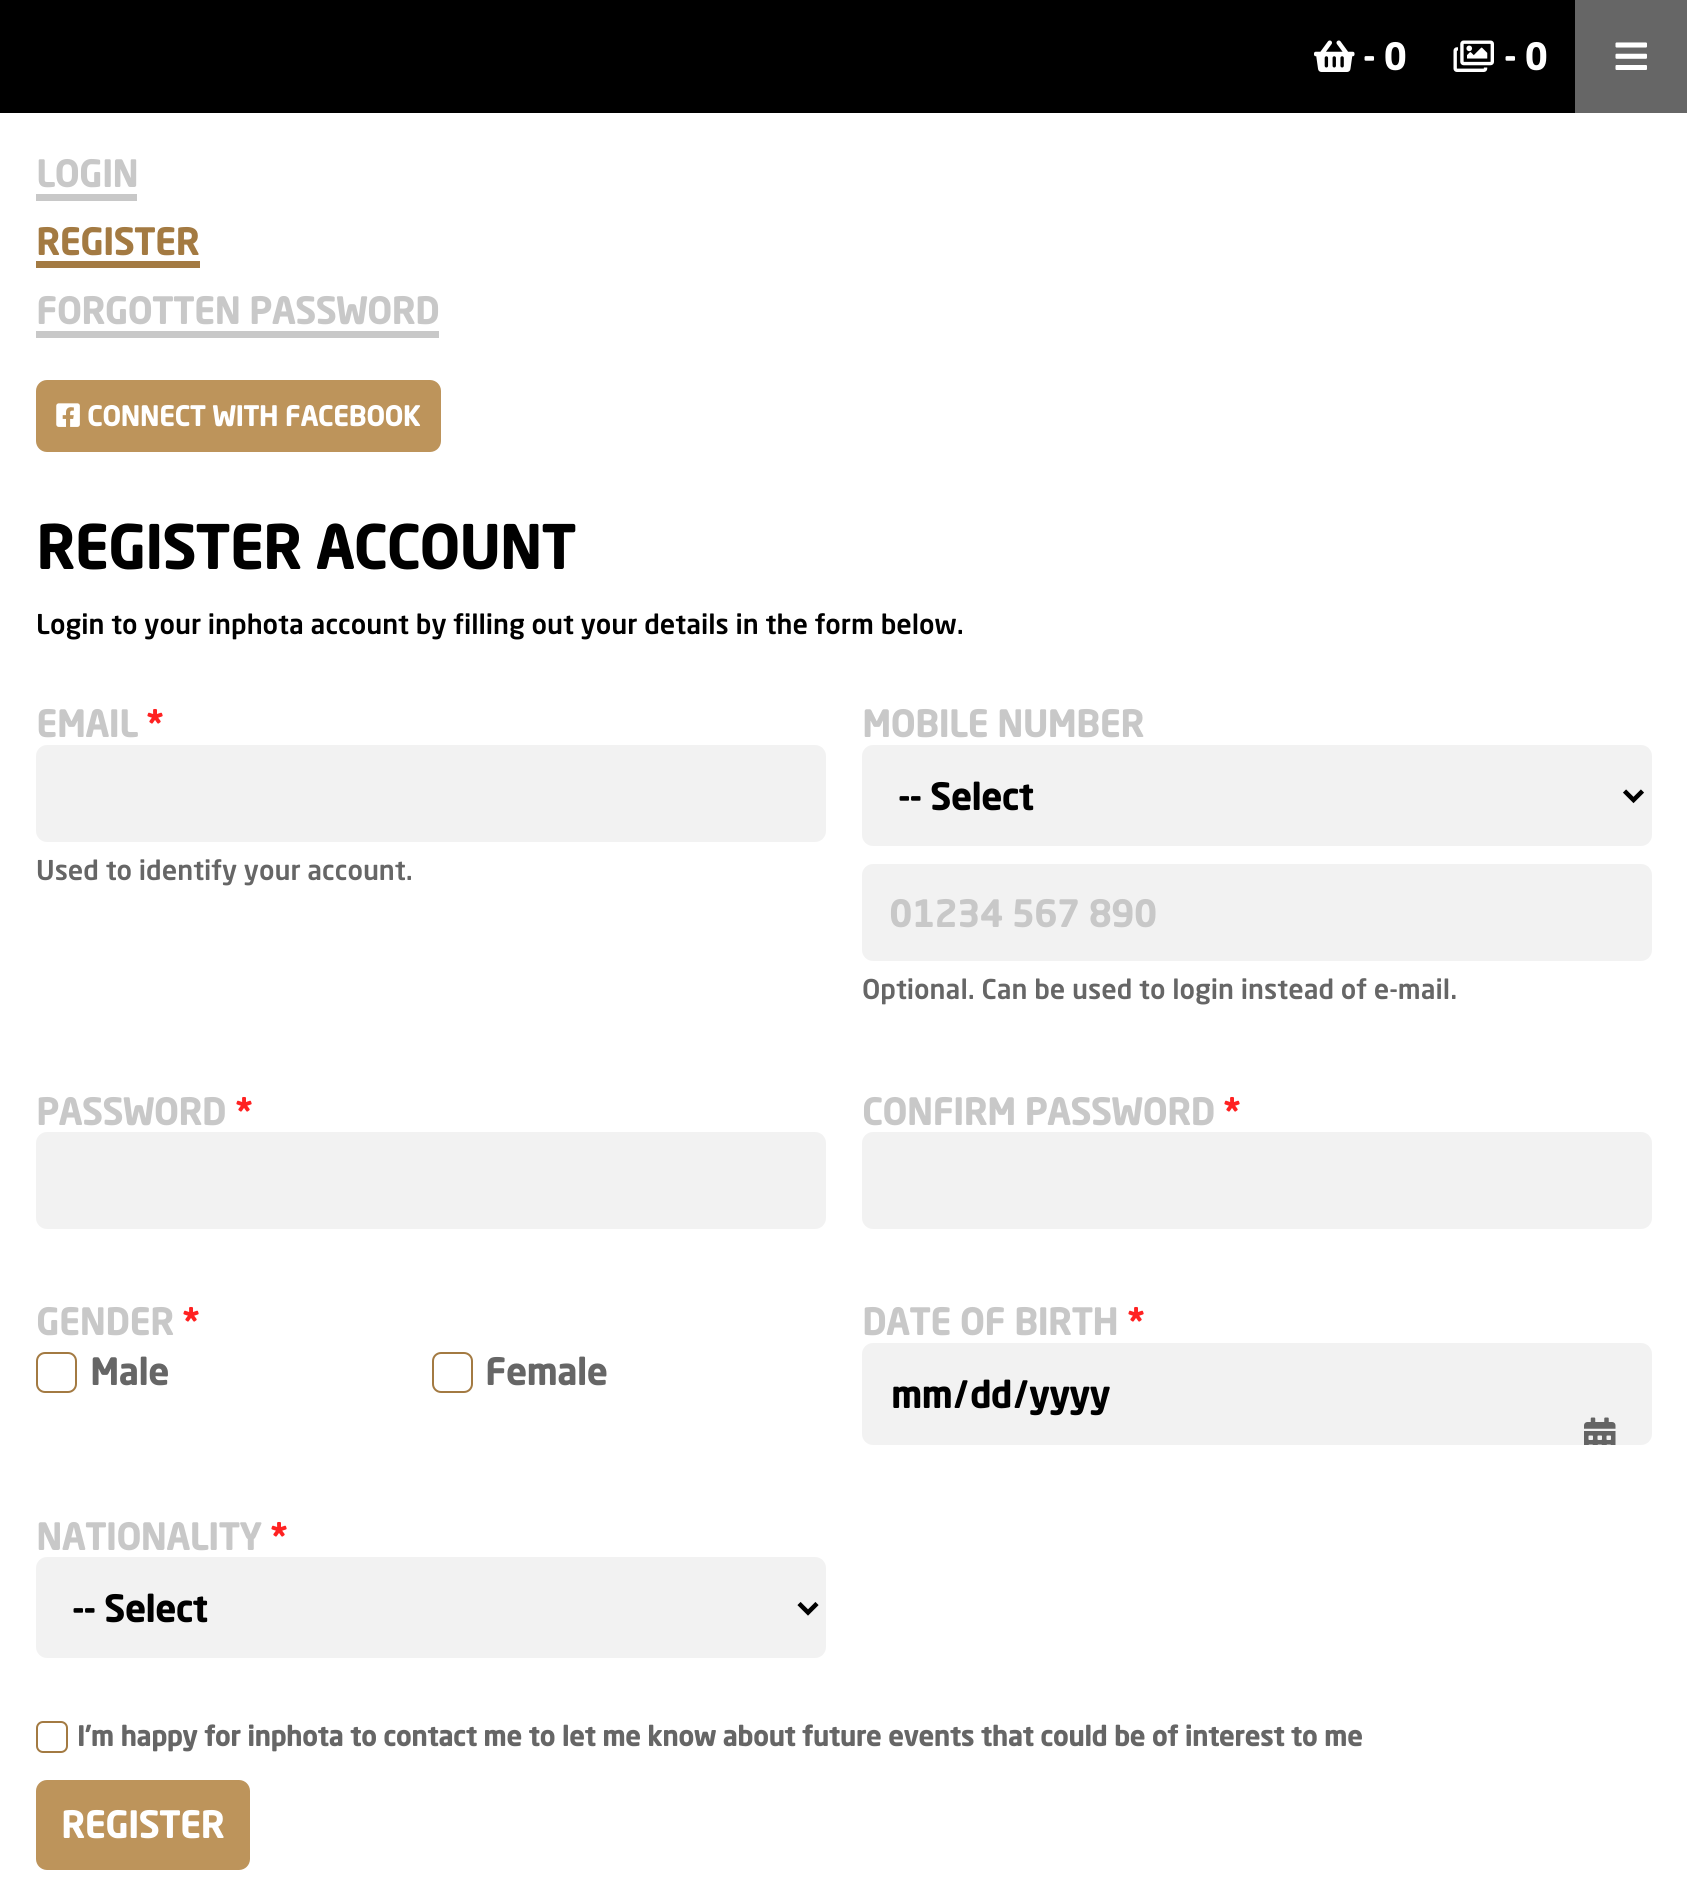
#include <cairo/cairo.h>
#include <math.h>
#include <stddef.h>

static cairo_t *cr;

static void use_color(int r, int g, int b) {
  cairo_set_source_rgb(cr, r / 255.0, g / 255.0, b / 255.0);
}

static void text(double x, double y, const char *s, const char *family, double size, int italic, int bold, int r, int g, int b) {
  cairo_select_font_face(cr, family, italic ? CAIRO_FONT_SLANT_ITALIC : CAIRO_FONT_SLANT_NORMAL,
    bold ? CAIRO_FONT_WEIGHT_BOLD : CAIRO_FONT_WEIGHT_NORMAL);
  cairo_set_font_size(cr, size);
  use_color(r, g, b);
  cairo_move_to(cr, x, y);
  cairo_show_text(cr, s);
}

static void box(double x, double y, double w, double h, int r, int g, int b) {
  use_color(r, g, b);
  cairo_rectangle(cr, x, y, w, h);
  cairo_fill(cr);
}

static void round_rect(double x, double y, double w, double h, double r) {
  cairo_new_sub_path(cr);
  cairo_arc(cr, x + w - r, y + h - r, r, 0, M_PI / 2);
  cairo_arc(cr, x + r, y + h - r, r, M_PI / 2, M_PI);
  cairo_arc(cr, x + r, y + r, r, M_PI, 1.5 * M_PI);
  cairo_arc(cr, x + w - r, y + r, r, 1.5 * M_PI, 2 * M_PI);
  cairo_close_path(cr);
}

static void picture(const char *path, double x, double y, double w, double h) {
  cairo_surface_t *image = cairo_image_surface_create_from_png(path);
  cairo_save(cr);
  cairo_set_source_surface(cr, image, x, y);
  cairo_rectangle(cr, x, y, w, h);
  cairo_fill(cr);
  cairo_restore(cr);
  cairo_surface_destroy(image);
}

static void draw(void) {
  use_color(255, 255, 255);
  cairo_paint(cr);
  box(0, 0, 1575, 113, 0, 0, 0);
  picture("img_01.png", 1314, 40, 41, 32);
  picture("img_02.png", 1453, 40, 41, 32);
  box(1575, 0, 112, 113, 102, 102, 102);
  picture("img_03.png", 1615, 42, 32, 28);
  box(36, 194, 101, 7, 200, 200, 200);
  box(36, 261, 164, 7, 163, 122, 66);
  box(36, 331, 403, 7, 200, 200, 200);
  use_color(189, 148, 91);
  round_rect(39.5, 383.5, 398, 65, 7.5);
  cairo_fill_preserve(cr);
  cairo_set_line_width(cr, 7);
  cairo_stroke(cr);
  picture("img_04.png", 56, 403, 24, 24);
  use_color(242, 242, 242);
  round_rect(36, 745, 790, 97, 11);
  cairo_fill(cr);
  round_rect(862, 745, 790, 101, 11);
  cairo_fill(cr);
  cairo_new_path(cr);
  cairo_move_to(cr, 1624.5, 791);
  cairo_line_to(cr, 1633.5, 800);
  cairo_line_to(cr, 1642.5, 791);
  use_color(0, 0, 0);
  cairo_set_line_width(cr, 4.5);
  cairo_stroke(cr);
  use_color(242, 242, 242);
  round_rect(862, 864, 790, 97, 11);
  cairo_fill(cr);
  round_rect(36, 1132, 790, 97, 11);
  cairo_fill(cr);
  round_rect(862, 1132, 790, 97, 11);
  cairo_fill(cr);
  round_rect(37, 1353, 39, 39, 8);
  use_color(163, 122, 66);
  cairo_set_line_width(cr, 2);
  cairo_stroke(cr);
  round_rect(433, 1353, 39, 39, 8);
  cairo_stroke(cr);
  use_color(242, 242, 242);
  round_rect(862, 1343, 790, 102, 11);
  cairo_fill(cr);
  picture("img_05.png", 1584, 1417, 32, 28);
  round_rect(36, 1557, 790, 101, 11);
  cairo_fill(cr);
  cairo_new_path(cr);
  cairo_move_to(cr, 799, 1603.5);
  cairo_line_to(cr, 808, 1612.5);
  cairo_line_to(cr, 817, 1603.5);
  use_color(0, 0, 0);
  cairo_set_line_width(cr, 4.5);
  cairo_stroke(cr);
  round_rect(37, 1722, 30, 30, 6);
  use_color(163, 122, 66);
  cairo_set_line_width(cr, 2);
  cairo_stroke(cr);
  use_color(189, 148, 91);
  round_rect(39.5, 1783.5, 207, 83, 7.5);
  cairo_fill_preserve(cr);
  cairo_set_line_width(cr, 7);
  cairo_stroke(cr);
  text(1363, 70, "- 0", "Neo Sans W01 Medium", 36, 0, 1, 255, 255, 255);
  text(1504, 70, "- 0", "Neo Sans W01 Medium", 36, 0, 1, 255, 255, 255);
  text(36, 187, "LOGIN", "Neo Sans W01 Medium", 36, 0, 1, 200, 200, 200);
  text(36, 255, "REGISTER", "Neo Sans W01 Medium", 36, 0, 1, 163, 122, 66);
  text(36, 324, "FORGOTTEN PASSWORD", "Neo Sans W01 Medium", 36, 0, 1, 200, 200, 200);
  text(87, 426, "CONNECT WITH FACEBOOK", "Neo Sans W01 Medium", 27, 0, 1, 255, 255, 255);
  text(36, 569, "REGISTER ACCOUNT", "Neo Sans W01 Medium", 58.5, 0, 1, 0, 0, 0);
  text(36, 634, "Login to your inphota account by filling out your details in the form below.", "Neo Sans W01 Medium Medium", 27, 0, 0, 0, 0, 0);
  text(36, 737, "EMAIL", "Neo Sans W01 Medium", 36, 0, 1, 200, 200, 200);
  text(146, 737, "*", "Neo Sans W01 Medium", 36, 0, 1, 255, 34, 34);
  text(36, 880, "Used to identify your account.", "Neo Sans W01 Medium Medium", 27, 0, 0, 102, 102, 102);
  text(862, 737, "MOBILE NUMBER", "Neo Sans W01 Medium", 36, 0, 1, 200, 200, 200);
  text(898, 810, "-- Select", "Neo Sans W01 Medium", 36, 0, 1, 0, 0, 0);
  text(889, 927, "01234 567 890", "Neo Sans W01 Medium", 36, 0, 1, 200, 200, 200);
  text(862, 999, "Optional. Can be used to login instead of e-mail.", "Neo Sans W01 Medium Medium", 27, 0, 0, 102, 102, 102);
  text(36, 1125, "PASSWORD", "Neo Sans W01 Medium", 36, 0, 1, 200, 200, 200);
  text(235, 1125, "*", "Neo Sans W01 Medium", 36, 0, 1, 255, 34, 34);
  text(862, 1125, "CONFIRM PASSWORD", "Neo Sans W01 Medium", 36, 0, 1, 200, 200, 200);
  text(1223, 1125, "*", "Neo Sans W01 Medium", 36, 0, 1, 255, 34, 34);
  text(36, 1335, "GENDER", "Neo Sans W01 Medium", 36, 0, 1, 200, 200, 200);
  text(182, 1335, "*", "Neo Sans W01 Medium", 36, 0, 1, 255, 34, 34);
  text(90, 1385, "Male", "Neo Sans W01 Medium", 36, 0, 1, 102, 102, 102);
  text(485, 1385, "Female", "Neo Sans W01 Medium", 36, 0, 1, 102, 102, 102);
  text(862, 1335, "DATE OF BIRTH", "Neo Sans W01 Medium", 36, 0, 1, 200, 200, 200);
  text(1127, 1335, "*", "Neo Sans W01 Medium", 36, 0, 1, 255, 34, 34);
  text(891, 1408, "mm", "Neo Sans W01 Medium", 36, 0, 1, 0, 0, 0);
  text(954, 1408, "/", "Neo Sans W01 Medium", 36, 0, 1, 0, 0, 0);
  text(970, 1408, "dd", "Neo Sans W01 Medium", 36, 0, 1, 0, 0, 0);
  text(1014, 1408, "/", "Neo Sans W01 Medium", 36, 0, 1, 0, 0, 0);
  text(1029, 1408, "yyyy", "Neo Sans W01 Medium", 36, 0, 1, 0, 0, 0);
  text(36, 1550, "NATIONALITY", "Neo Sans W01 Medium", 36, 0, 1, 200, 200, 200);
  text(270, 1550, "*", "Neo Sans W01 Medium", 36, 0, 1, 255, 34, 34);
  text(72, 1622, "-- Select", "Neo Sans W01 Medium", 36, 0, 1, 0, 0, 0);
  text(77, 1746, "I'm happy for inphota to contact me to let me know about future events that could be of interest to me", "Neo Sans W01 Medium", 27, 0, 1, 102, 102, 102);
  text(61, 1838, "REGISTER", "Neo Sans W01 Medium", 36, 0, 1, 255, 255, 255);
}

int main(void) {
  cairo_surface_t *surface = cairo_image_surface_create(CAIRO_FORMAT_RGB24, 1687, 1881);
  cr = cairo_create(surface);
  cairo_font_options_t *options = cairo_font_options_create();
  cairo_font_options_set_hint_metrics(options, CAIRO_HINT_METRICS_OFF);
  cairo_font_options_set_hint_style(options, CAIRO_HINT_STYLE_NONE);
  cairo_set_font_options(cr, options);
  cairo_set_miter_limit(cr, 4);
  draw();
  cairo_surface_write_to_png(surface, "out.png");
  cairo_font_options_destroy(options);
  cairo_destroy(cr);
  cairo_surface_destroy(surface);
  return 0;
}
